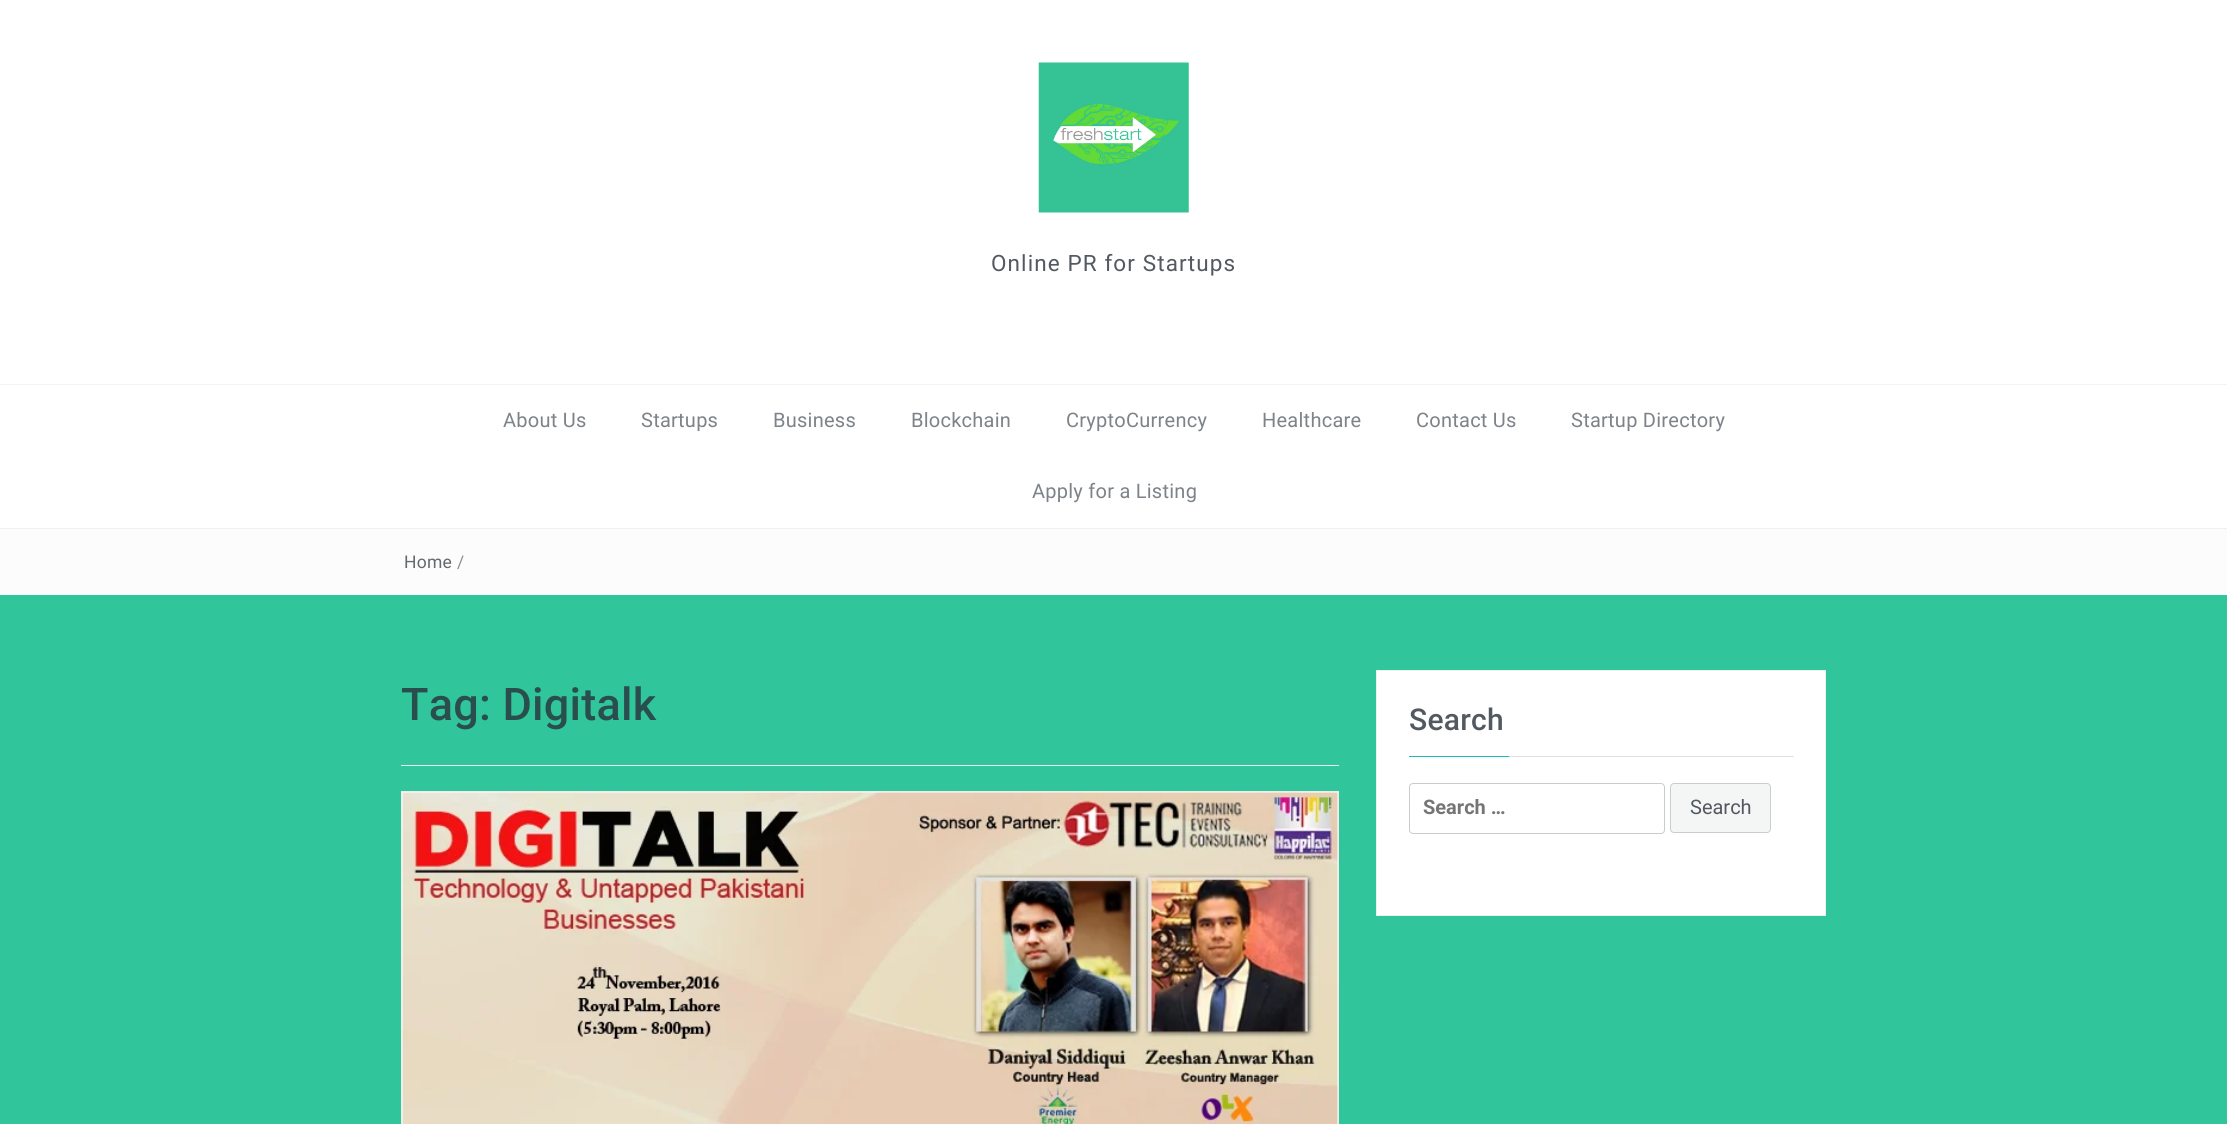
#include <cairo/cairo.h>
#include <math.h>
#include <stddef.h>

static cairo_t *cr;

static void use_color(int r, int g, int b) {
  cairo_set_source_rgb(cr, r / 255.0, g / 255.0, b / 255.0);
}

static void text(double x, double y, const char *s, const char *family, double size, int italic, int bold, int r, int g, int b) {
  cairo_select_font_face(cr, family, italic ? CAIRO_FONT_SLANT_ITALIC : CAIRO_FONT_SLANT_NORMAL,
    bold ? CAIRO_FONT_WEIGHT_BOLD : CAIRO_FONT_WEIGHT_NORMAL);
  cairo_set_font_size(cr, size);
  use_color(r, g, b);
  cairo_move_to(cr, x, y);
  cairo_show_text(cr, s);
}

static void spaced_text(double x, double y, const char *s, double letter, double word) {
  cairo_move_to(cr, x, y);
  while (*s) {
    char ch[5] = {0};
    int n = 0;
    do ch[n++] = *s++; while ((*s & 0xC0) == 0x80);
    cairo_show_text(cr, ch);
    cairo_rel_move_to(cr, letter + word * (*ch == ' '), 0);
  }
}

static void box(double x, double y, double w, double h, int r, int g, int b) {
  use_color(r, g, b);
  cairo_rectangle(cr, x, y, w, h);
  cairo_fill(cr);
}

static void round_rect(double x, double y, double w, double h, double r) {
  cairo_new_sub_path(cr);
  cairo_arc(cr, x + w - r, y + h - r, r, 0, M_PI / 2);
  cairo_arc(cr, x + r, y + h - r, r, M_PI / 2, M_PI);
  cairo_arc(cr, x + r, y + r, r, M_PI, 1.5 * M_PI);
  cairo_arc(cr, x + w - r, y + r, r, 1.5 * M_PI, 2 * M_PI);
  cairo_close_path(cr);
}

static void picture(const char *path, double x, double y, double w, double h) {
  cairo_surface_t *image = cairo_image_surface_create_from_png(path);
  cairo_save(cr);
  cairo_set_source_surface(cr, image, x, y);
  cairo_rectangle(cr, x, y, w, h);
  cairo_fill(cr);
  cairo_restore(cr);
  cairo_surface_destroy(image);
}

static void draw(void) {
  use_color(48, 197, 155);
  cairo_paint(cr);
  box(0, 0, 2227, 384, 255, 255, 255);
  picture("img_01.png", 1038, 62, 151, 151);
  box(0, 385, 2227, 143, 255, 255, 255);
  box(0, 384, 2227, 1, 242, 243, 243);
  box(0, 529, 2227, 66, 252, 252, 252);
  box(0, 528, 2227, 1, 239, 240, 240);
  box(401, 765, 938, 1, 238, 238, 238);
  use_color(255, 255, 255);
  cairo_rectangle(cr, 401.5, 791.5, 937, 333);
  cairo_fill_preserve(cr);
  use_color(238, 238, 239);
  cairo_set_line_width(cr, 1);
  cairo_stroke(cr);
  picture("img_02.png", 402, 792, 936, 332);
  use_color(255, 255, 255);
  cairo_rectangle(cr, 1376.5, 670.5, 449, 245);
  cairo_fill_preserve(cr);
  use_color(238, 238, 239);
  cairo_stroke(cr);
  box(1509, 756, 285, 1, 223, 224, 225);
  box(1409, 756, 100, 1, 23, 190, 187);
  round_rect(1409.5, 783.5, 255, 50, 3.5);
  use_color(201, 203, 206);
  cairo_stroke(cr);
  use_color(244, 245, 245);
  round_rect(1670, 783, 101, 50, 4);
  cairo_fill(cr);
  round_rect(1670.5, 783.5, 100, 49, 3.5);
  cairo_set_source_rgba(cr, 0.153, 0.188, 0.224, 0.2);
  cairo_stroke(cr);
  cairo_select_font_face(cr, "Roboto", CAIRO_FONT_SLANT_NORMAL, CAIRO_FONT_WEIGHT_NORMAL);
  cairo_set_font_size(cr, 22.5);
  use_color(82, 89, 97);
  spaced_text(991, 271, "Online PR for Startups", 1.1, 0);
  cairo_set_font_size(cr, 20);
  use_color(125, 131, 136);
  spaced_text(503, 427, "About Us", 0.25, 0);
  spaced_text(641, 427, "Startups", 0.25, 0);
  spaced_text(773, 427, "Business", 0.25, 0);
  spaced_text(911, 427, "Blockchain", 0.25, 0);
  spaced_text(1066, 427, "CryptoCurrency", 0.25, 0);
  spaced_text(1262, 427, "Healthcare", 0.25, 0);
  spaced_text(1416, 427, "Contact Us", 0.25, 0);
  spaced_text(1571, 427, "Startup Directory", 0.25, 0);
  spaced_text(1032, 498, "Apply for a Listing", 0.25, 0);
  cairo_set_font_size(cr, 17.5);
  use_color(98, 105, 112);
  spaced_text(404, 568, "Home", 0.25, 0);
  use_color(138, 143, 148);
  spaced_text(457, 568, "/", 0.25, 0);
  cairo_select_font_face(cr, "Roboto Medium", CAIRO_FONT_SLANT_NORMAL, CAIRO_FONT_WEIGHT_NORMAL);
  cairo_set_font_size(cr, 45);
  use_color(41, 78, 77);
  spaced_text(401, 720, "Tag: Digitalk", 0.25, 0);
  cairo_set_font_size(cr, 30);
  use_color(82, 89, 97);
  spaced_text(1409, 730, "Search", 0.25, 0);
  text(1423, 814, "Search …", "Roboto", 20, 0, 1, 117, 117, 117);
  text(1690, 814, "Search", "Roboto", 20, 0, 0, 82, 89, 97);
}

int main(void) {
  cairo_surface_t *surface = cairo_image_surface_create(CAIRO_FORMAT_RGB24, 2227, 1124);
  cr = cairo_create(surface);
  cairo_font_options_t *options = cairo_font_options_create();
  cairo_font_options_set_hint_metrics(options, CAIRO_HINT_METRICS_OFF);
  cairo_font_options_set_hint_style(options, CAIRO_HINT_STYLE_NONE);
  cairo_set_font_options(cr, options);
  cairo_set_miter_limit(cr, 4);
  draw();
  cairo_surface_write_to_png(surface, "out.png");
  cairo_font_options_destroy(options);
  cairo_destroy(cr);
  cairo_surface_destroy(surface);
  return 0;
}
